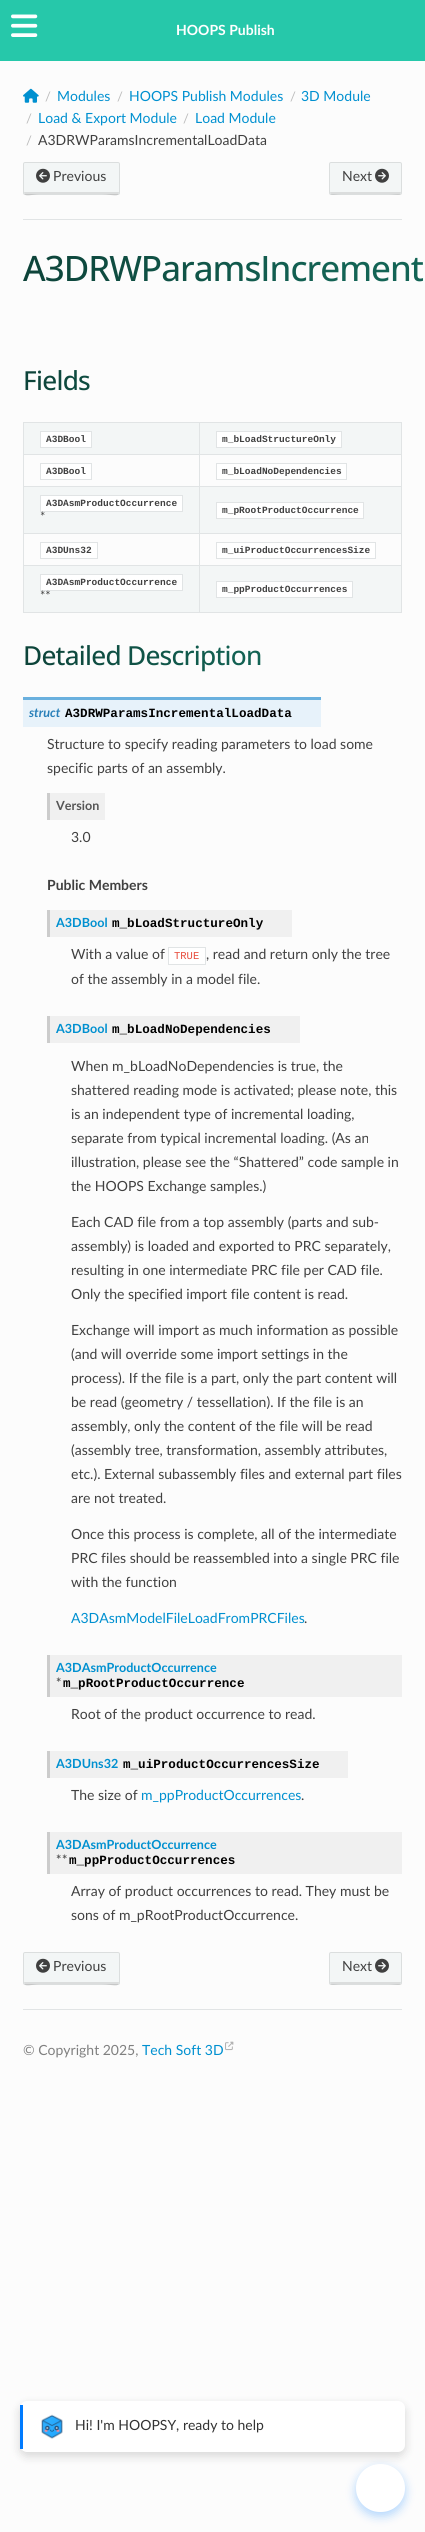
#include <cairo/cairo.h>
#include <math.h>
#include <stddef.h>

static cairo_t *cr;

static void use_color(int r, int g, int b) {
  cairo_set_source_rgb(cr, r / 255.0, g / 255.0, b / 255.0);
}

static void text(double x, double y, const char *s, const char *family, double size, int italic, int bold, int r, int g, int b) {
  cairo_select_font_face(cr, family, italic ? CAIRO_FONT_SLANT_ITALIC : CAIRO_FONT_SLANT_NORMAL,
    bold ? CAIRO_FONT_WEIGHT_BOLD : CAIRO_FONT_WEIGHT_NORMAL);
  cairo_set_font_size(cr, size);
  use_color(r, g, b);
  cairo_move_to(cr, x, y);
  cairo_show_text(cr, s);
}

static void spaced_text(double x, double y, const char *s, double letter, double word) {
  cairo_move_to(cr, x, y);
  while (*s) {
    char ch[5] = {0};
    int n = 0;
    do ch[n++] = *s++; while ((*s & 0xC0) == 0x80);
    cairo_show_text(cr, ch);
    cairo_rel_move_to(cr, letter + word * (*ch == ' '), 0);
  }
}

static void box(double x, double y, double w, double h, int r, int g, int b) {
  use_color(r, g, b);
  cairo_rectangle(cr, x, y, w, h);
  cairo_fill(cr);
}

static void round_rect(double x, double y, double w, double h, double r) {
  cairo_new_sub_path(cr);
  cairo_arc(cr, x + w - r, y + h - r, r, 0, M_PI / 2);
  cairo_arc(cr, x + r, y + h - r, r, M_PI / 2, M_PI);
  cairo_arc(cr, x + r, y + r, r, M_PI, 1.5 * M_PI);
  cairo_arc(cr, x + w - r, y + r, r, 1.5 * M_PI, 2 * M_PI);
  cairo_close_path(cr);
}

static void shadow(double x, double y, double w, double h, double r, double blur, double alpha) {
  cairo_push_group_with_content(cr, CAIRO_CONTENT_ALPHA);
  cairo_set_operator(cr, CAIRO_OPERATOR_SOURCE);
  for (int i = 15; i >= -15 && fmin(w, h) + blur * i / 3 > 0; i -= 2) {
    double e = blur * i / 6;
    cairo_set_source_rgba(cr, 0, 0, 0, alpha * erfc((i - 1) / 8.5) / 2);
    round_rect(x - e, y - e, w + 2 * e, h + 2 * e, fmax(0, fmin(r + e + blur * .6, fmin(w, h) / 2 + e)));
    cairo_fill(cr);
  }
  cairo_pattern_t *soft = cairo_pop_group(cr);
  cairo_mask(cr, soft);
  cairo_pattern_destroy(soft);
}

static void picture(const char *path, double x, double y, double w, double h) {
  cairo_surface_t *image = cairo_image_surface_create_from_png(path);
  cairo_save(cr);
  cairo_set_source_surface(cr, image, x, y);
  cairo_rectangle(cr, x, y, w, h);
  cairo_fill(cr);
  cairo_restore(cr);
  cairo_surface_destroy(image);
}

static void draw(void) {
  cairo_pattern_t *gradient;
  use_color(252, 252, 252);
  cairo_paint(cr);
  box(0, 0, 425, 61, 38, 200, 170);
  picture("img_01.png", 11, 14, 27, 23);
  picture("img_02.png", 23, 88, 16, 15);
  use_color(243, 246, 246);
  round_rect(23, 162, 97, 33, 2);
  cairo_fill(cr);
  use_color(219, 221, 221);
  cairo_new_path(cr);
  cairo_move_to(cr, 24, 191);
  cairo_curve_to(cr, 24, 199, 31, 194, 40, 194);
  cairo_line_to(cr, 102, 194);
  cairo_curve_to(cr, 112, 194, 119, 199, 119, 191);
  cairo_curve_to(cr, 119, 192, 119, 192, 118, 192);
  cairo_line_to(cr, 25, 192);
  cairo_curve_to(cr, 24, 192, 24, 192, 24, 191);
  cairo_close_path(cr);
  cairo_fill(cr);
  round_rect(23.5, 162.5, 96, 32, 1.5);
  cairo_set_source_rgba(cr, 0, 0, 0, 0.1);
  cairo_set_line_width(cr, 1);
  cairo_stroke(cr);
  picture("img_03.png", 36, 168, 14, 15);
  use_color(243, 246, 246);
  round_rect(329, 162, 73, 33, 2);
  cairo_fill(cr);
  use_color(219, 221, 221);
  cairo_new_path(cr);
  cairo_move_to(cr, 330, 191);
  cairo_curve_to(cr, 330, 197, 334, 194, 342, 194);
  cairo_line_to(cr, 388, 194);
  cairo_curve_to(cr, 397, 194, 401, 197, 401, 191);
  cairo_curve_to(cr, 401, 192, 401, 192, 400, 192);
  cairo_line_to(cr, 331, 192);
  cairo_curve_to(cr, 330, 192, 330, 192, 330, 191);
  cairo_close_path(cr);
  cairo_fill(cr);
  round_rect(329.5, 162.5, 72, 32, 1.5);
  cairo_set_source_rgba(cr, 0, 0, 0, 0.1);
  cairo_stroke(cr);
  picture("img_04.png", 375, 168, 14, 15);
  box(23, 219, 379, 1, 225, 228, 229);
  box(23, 422, 379, 1, 225, 228, 229);
  box(401, 422, 1, 191, 225, 228, 229);
  box(23, 612, 379, 1, 225, 228, 229);
  box(23, 422, 1, 191, 225, 228, 229);
  box(24, 423, 175, 31, 243, 246, 246);
  use_color(255, 255, 255);
  cairo_rectangle(cr, 40.5, 431.5, 51, 16);
  cairo_fill_preserve(cr);
  use_color(225, 228, 229);
  cairo_stroke(cr);
  box(200, 423, 201, 31, 243, 246, 246);
  box(199, 454, 203, 1, 225, 228, 229);
  box(199, 486, 203, 1, 225, 228, 229);
  box(199, 533, 203, 1, 225, 228, 229);
  box(199, 565, 203, 1, 225, 228, 229);
  box(199, 565, 1, 48, 225, 228, 229);
  box(23, 565, 177, 1, 225, 228, 229);
  box(199, 533, 1, 33, 225, 228, 229);
  box(23, 533, 177, 1, 225, 228, 229);
  box(199, 486, 1, 48, 225, 228, 229);
  box(23, 486, 177, 1, 225, 228, 229);
  box(199, 454, 1, 33, 225, 228, 229);
  box(23, 454, 177, 1, 225, 228, 229);
  box(199, 422, 1, 33, 225, 228, 229);
  use_color(255, 255, 255);
  cairo_rectangle(cr, 216.5, 431.5, 125, 16);
  cairo_fill_preserve(cr);
  use_color(225, 228, 229);
  cairo_stroke(cr);
  use_color(255, 255, 255);
  cairo_rectangle(cr, 40.5, 463.5, 51, 16);
  cairo_fill_preserve(cr);
  use_color(225, 228, 229);
  cairo_stroke(cr);
  use_color(255, 255, 255);
  cairo_rectangle(cr, 216.5, 463.5, 130, 16);
  cairo_fill_preserve(cr);
  use_color(225, 228, 229);
  cairo_stroke(cr);
  box(24, 487, 175, 46, 243, 246, 246);
  use_color(255, 255, 255);
  cairo_rectangle(cr, 40.5, 495.5, 142, 16);
  cairo_fill_preserve(cr);
  use_color(225, 228, 229);
  cairo_stroke(cr);
  box(200, 487, 201, 46, 243, 246, 246);
  use_color(255, 255, 255);
  cairo_rectangle(cr, 216.5, 502.5, 147, 16);
  cairo_fill_preserve(cr);
  use_color(225, 228, 229);
  cairo_stroke(cr);
  use_color(255, 255, 255);
  cairo_rectangle(cr, 40.5, 542.5, 57, 16);
  cairo_fill_preserve(cr);
  use_color(225, 228, 229);
  cairo_stroke(cr);
  use_color(255, 255, 255);
  cairo_rectangle(cr, 216.5, 542.5, 159, 16);
  cairo_fill_preserve(cr);
  use_color(225, 228, 229);
  cairo_stroke(cr);
  box(24, 566, 175, 46, 243, 246, 246);
  use_color(255, 255, 255);
  cairo_rectangle(cr, 40.5, 574.5, 142, 16);
  cairo_fill_preserve(cr);
  use_color(225, 228, 229);
  cairo_stroke(cr);
  box(200, 566, 201, 46, 243, 246, 246);
  use_color(255, 255, 255);
  cairo_rectangle(cr, 216.5, 581.5, 136, 16);
  cairo_fill_preserve(cr);
  use_color(225, 228, 229);
  cairo_stroke(cr);
  box(23, 700, 298, 27, 231, 242, 250);
  box(23, 697, 298, 3, 106, 176, 222);
  box(50, 793, 55, 27, 240, 240, 240);
  box(47, 793, 3, 27, 204, 204, 204);
  box(50, 910, 242, 27, 240, 240, 240);
  box(47, 910, 3, 27, 204, 204, 204);
  use_color(255, 255, 255);
  cairo_rectangle(cr, 168.5, 947.5, 37, 17);
  cairo_fill_preserve(cr);
  use_color(225, 228, 229);
  cairo_stroke(cr);
  box(50, 1016, 250, 27, 240, 240, 240);
  box(47, 1016, 3, 27, 204, 204, 204);
  box(50, 1655, 352, 42, 240, 240, 240);
  box(47, 1655, 3, 42, 204, 204, 204);
  box(50, 1751, 298, 27, 240, 240, 240);
  box(47, 1751, 3, 27, 204, 204, 204);
  box(50, 1832, 352, 42, 240, 240, 240);
  box(47, 1832, 3, 42, 204, 204, 204);
  use_color(243, 246, 246);
  round_rect(23, 1952, 97, 33, 2);
  cairo_fill(cr);
  use_color(219, 221, 221);
  cairo_new_path(cr);
  cairo_move_to(cr, 24, 1981);
  cairo_curve_to(cr, 24, 1989, 31, 1984, 40, 1984);
  cairo_line_to(cr, 102, 1984);
  cairo_curve_to(cr, 112, 1984, 119, 1989, 119, 1981);
  cairo_curve_to(cr, 119, 1982, 119, 1982, 118, 1982);
  cairo_line_to(cr, 25, 1982);
  cairo_curve_to(cr, 24, 1982, 24, 1982, 24, 1981);
  cairo_close_path(cr);
  cairo_fill(cr);
  round_rect(23.5, 1952.5, 96, 32, 1.5);
  cairo_set_source_rgba(cr, 0, 0, 0, 0.1);
  cairo_stroke(cr);
  picture("img_03.png", 36, 1958, 14, 15);
  use_color(243, 246, 246);
  round_rect(329, 1952, 73, 33, 2);
  cairo_fill(cr);
  use_color(219, 221, 221);
  cairo_new_path(cr);
  cairo_move_to(cr, 330, 1981);
  cairo_curve_to(cr, 330, 1987, 334, 1984, 342, 1984);
  cairo_line_to(cr, 388, 1984);
  cairo_curve_to(cr, 397, 1984, 401, 1987, 401, 1981);
  cairo_curve_to(cr, 401, 1982, 401, 1982, 400, 1982);
  cairo_line_to(cr, 331, 1982);
  cairo_curve_to(cr, 330, 1982, 330, 1982, 330, 1981);
  cairo_close_path(cr);
  cairo_fill(cr);
  round_rect(329.5, 1952.5, 72, 32, 1.5);
  cairo_set_source_rgba(cr, 0, 0, 0, 0.1);
  cairo_stroke(cr);
  picture("img_04.png", 375, 1958, 14, 15);
  box(23, 2009, 379, 1, 225, 228, 229);
  picture("img_05.png", 225, 2041, 9, 10);
  use_color(0, 123, 255);
  shadow(356, 2468, 49, 48, 24, 5, 0.3);
  use_color(255, 255, 255);
  round_rect(356, 2464, 49, 48, 24);
  cairo_fill(cr);
  use_color(0, 0, 0);
  shadow(20, 2405, 385, 51, 7, 5, 0.15);
  use_color(255, 255, 255);
  round_rect(20, 2401, 385, 51, 7);
  cairo_fill(cr);
  box(20, 2405, 3, 44, 0, 123, 255);
  picture("img_06.png", 41, 2414, 22, 25);
  text(176, 35, "HOOPS Publish", "Lato", 14, 0, 1, 255, 255, 255);
  text(45, 101, "/", "Lato", 13, 0, 0, 187, 187, 187);
  text(57, 101, "Modules", "Lato", 14, 0, 0, 0, 144, 208);
  text(117, 101, "/", "Lato", 13, 0, 0, 187, 187, 187);
  text(129, 101, "HOOPS Publish Modules", "Lato", 14, 0, 0, 0, 144, 208);
  text(290, 101, "/", "Lato", 13, 0, 0, 187, 187, 187);
  text(301, 101, "3D Module", "Lato", 14, 0, 0, 0, 144, 208);
  text(26, 123, "/", "Lato", 13, 0, 0, 187, 187, 187);
  text(38, 123, "Load & Export Module", "Lato", 14, 0, 0, 0, 144, 208);
  text(183, 123, "/", "Lato", 13, 0, 0, 187, 187, 187);
  text(195, 123, "Load Module", "Lato", 14, 0, 0, 0, 144, 208);
  text(26, 145, "/", "Lato", 13, 0, 0, 187, 187, 187);
  text(38, 145, "A3DRWParamsIncrementalLoadData", "Lato", 14, 0, 0, 64, 64, 64);
  text(53, 181, "Previous", "Lato", 14, 0, 0, 64, 64, 64);
  text(342, 181, "Next", "Lato", 14, 0, 0, 64, 64, 64);
  cairo_select_font_face(cr, "Open Sans Medium", CAIRO_FONT_SLANT_NORMAL, CAIRO_FONT_WEIGHT_NORMAL);
  cairo_set_font_size(cr, 35);
  gradient = cairo_pattern_create_linear(23, 291, 402, 291);
  cairo_pattern_add_color_stop_rgba(gradient, 0, 0.051, 0.263, 0.224, 1);
  cairo_pattern_add_color_stop_rgba(gradient, 0.84, 0.075, 0.392, 0.333, 1);
  cairo_set_source(cr, gradient);
  cairo_pattern_destroy(gradient);
  spaced_text(23, 281, "A3DRWParamsIncrement", -1, 0);
  cairo_set_font_size(cr, 26.25);
  gradient = cairo_pattern_create_linear(23, 380, 402, 380);
  cairo_pattern_add_color_stop_rgba(gradient, 0, 0.051, 0.263, 0.224, 1);
  cairo_pattern_add_color_stop_rgba(gradient, 0.63, 0.075, 0.392, 0.333, 1);
  cairo_set_source(cr, gradient);
  cairo_pattern_destroy(gradient);
  spaced_text(23, 390, "Fields", -0.75, 0);
  text(46, 442, "A3DBool", "Liberation Mono", 9.5, 0, 1, 64, 64, 64);
  text(222, 442, "m_bLoadStructureOnly", "Liberation Mono", 9.5, 0, 1, 64, 64, 64);
  text(46, 474, "A3DBool", "Liberation Mono", 9.5, 0, 1, 64, 64, 64);
  text(222, 474, "m_bLoadNoDependencies", "Liberation Mono", 9.5, 0, 1, 64, 64, 64);
  text(46, 506, "A3DAsmProductOccurrence", "Liberation Mono", 9.5, 0, 1, 64, 64, 64);
  text(40, 521, "*", "Lato", 12.6, 0, 0, 64, 64, 64);
  text(222, 513, "m_pRootProductOccurrence", "Liberation Mono", 9.5, 0, 1, 64, 64, 64);
  text(46, 553, "A3DUns32", "Liberation Mono", 9.5, 0, 1, 64, 64, 64);
  text(222, 553, "m_uiProductOccurrencesSize", "Liberation Mono", 9.5, 0, 1, 64, 64, 64);
  text(46, 585, "A3DAsmProductOccurrence", "Liberation Mono", 9.5, 0, 1, 64, 64, 64);
  text(40, 600, "**", "Lato", 12.6, 0, 0, 64, 64, 64);
  text(222, 592, "m_ppProductOccurrences", "Liberation Mono", 9.5, 0, 1, 64, 64, 64);
  cairo_select_font_face(cr, "Open Sans Medium", CAIRO_FONT_SLANT_NORMAL, CAIRO_FONT_WEIGHT_NORMAL);
  cairo_set_font_size(cr, 26.25);
  gradient = cairo_pattern_create_linear(23, 655, 402, 655);
  cairo_pattern_add_color_stop_rgba(gradient, 0, 0.051, 0.263, 0.224, 1);
  cairo_pattern_add_color_stop_rgba(gradient, 0.63, 0.075, 0.392, 0.333, 1);
  cairo_set_source(cr, gradient);
  cairo_pattern_destroy(gradient);
  spaced_text(23, 665, "Detailed Description", -0.75, 0);
  text(29, 717, "struct", "Lato", 12.6, 1, 1, 41, 128, 185);
  text(65, 717, "A3DRWParamsIncrementalLoadData", "Liberation Mono", 12.6, 0, 1, 0, 0, 0);
  text(47, 749, "Structure to specify reading parameters to load some", "Lato", 14, 0, 0, 64, 64, 64);
  text(47, 773, "specific parts of an assembly.", "Lato", 14, 0, 0, 64, 64, 64);
  text(56, 810, "Version", "Lato", 12.6, 0, 1, 85, 85, 85);
  text(71, 842, "3.0", "Lato", 14, 0, 0, 64, 64, 64);
  text(47, 890, "Public Members", "Lato", 14, 0, 1, 64, 64, 64);
  text(56, 927, "A3DBool", "Lato", 12.6, 0, 1, 0, 144, 208);
  text(112, 927, "m_bLoadStructureOnly", "Liberation Mono", 12.6, 0, 1, 0, 0, 0);
  text(71, 959, "With a value of", "Lato", 14, 0, 0, 64, 64, 64);
  text(174, 959, "TRUE", "Liberation Mono", 10.5, 0, 0, 231, 76, 60);
  text(206, 959, ", read and return only the tree", "Lato", 14, 0, 0, 64, 64, 64);
  text(71, 984, "of the assembly in a model file.", "Lato", 14, 0, 0, 64, 64, 64);
  text(56, 1033, "A3DBool", "Lato", 12.6, 0, 1, 0, 144, 208);
  text(112, 1033, "m_bLoadNoDependencies", "Liberation Mono", 12.6, 0, 1, 0, 0, 0);
  text(71, 1071, "When m_bLoadNoDependencies is true, the", "Lato", 14, 0, 0, 64, 64, 64);
  text(71, 1095, "shattered reading mode is activated; please note, this", "Lato", 14, 0, 0, 64, 64, 64);
  text(71, 1119, "is an independent type of incremental loading,", "Lato", 14, 0, 0, 64, 64, 64);
  text(71, 1143, "separate from typical incremental loading. (As an", "Lato", 14, 0, 0, 64, 64, 64);
  text(71, 1167, "illustration, please see the “Shattered” code sample in", "Lato", 14, 0, 0, 64, 64, 64);
  text(71, 1191, "the HOOPS Exchange samples.)", "Lato", 14, 0, 0, 64, 64, 64);
  text(71, 1227, "Each CAD file from a top assembly (parts and sub-", "Lato", 14, 0, 0, 64, 64, 64);
  text(71, 1251, "assembly) is loaded and exported to PRC separately,", "Lato", 14, 0, 0, 64, 64, 64);
  text(71, 1275, "resulting in one intermediate PRC file per CAD file.", "Lato", 14, 0, 0, 64, 64, 64);
  text(71, 1299, "Only the specified import file content is read.", "Lato", 14, 0, 0, 64, 64, 64);
  text(71, 1335, "Exchange will import as much information as possible", "Lato", 14, 0, 0, 64, 64, 64);
  text(71, 1359, "(and will override some import settings in the", "Lato", 14, 0, 0, 64, 64, 64);
  text(71, 1383, "process). If the file is a part, only the part content will", "Lato", 14, 0, 0, 64, 64, 64);
  text(71, 1407, "be read (geometry / tessellation). If the file is an", "Lato", 14, 0, 0, 64, 64, 64);
  text(71, 1431, "assembly, only the content of the file will be read", "Lato", 14, 0, 0, 64, 64, 64);
  text(71, 1455, "(assembly tree, transformation, assembly attributes,", "Lato", 14, 0, 0, 64, 64, 64);
  text(71, 1479, "etc.). External subassembly files and external part files", "Lato", 14, 0, 0, 64, 64, 64);
  text(71, 1503, "are not treated.", "Lato", 14, 0, 0, 64, 64, 64);
  text(71, 1539, "Once this process is complete, all of the intermediate", "Lato", 14, 0, 0, 64, 64, 64);
  text(71, 1563, "PRC files should be reassembled into a single PRC file", "Lato", 14, 0, 0, 64, 64, 64);
  text(71, 1587, "with the function", "Lato", 14, 0, 0, 64, 64, 64);
  text(71, 1623, "A3DAsmModelFileLoadFromPRCFiles", "Lato", 14, 0, 0, 0, 144, 208);
  text(304, 1623, ".", "Lato", 14, 0, 0, 64, 64, 64);
  text(56, 1672, "A3DAsmProductOccurrence", "Lato", 12.6, 0, 1, 0, 144, 208);
  text(56, 1687, "*", "Lato", 12.6, 0, 1, 85, 85, 85);
  text(63, 1687, "m_pRootProductOccurrence", "Liberation Mono", 12.6, 0, 1, 0, 0, 0);
  text(71, 1719, "Root of the product occurrence to read.", "Lato", 14, 0, 0, 64, 64, 64);
  text(56, 1768, "A3DUns32", "Lato", 12.6, 0, 1, 0, 144, 208);
  text(123, 1768, "m_uiProductOccurrencesSize", "Liberation Mono", 12.6, 0, 1, 0, 0, 0);
  text(71, 1800, "The size of", "Lato", 14, 0, 0, 64, 64, 64);
  text(141, 1800, "m_ppProductOccurrences", "Lato", 14, 0, 0, 0, 144, 208);
  text(301, 1800, ".", "Lato", 14, 0, 0, 64, 64, 64);
  text(56, 1849, "A3DAsmProductOccurrence", "Lato", 12.6, 0, 1, 0, 144, 208);
  text(56, 1864, "*", "Lato", 12.6, 0, 1, 85, 85, 85);
  text(62, 1864, "*", "Lato", 12.6, 0, 1, 85, 85, 85);
  text(69, 1864, "m_ppProductOccurrences", "Liberation Mono", 12.6, 0, 1, 0, 0, 0);
  text(71, 1896, "Array of product occurrences to read. They must be", "Lato", 14, 0, 0, 64, 64, 64);
  text(71, 1920, "sons of m_pRootProductOccurrence.", "Lato", 14, 0, 0, 64, 64, 64);
  text(53, 1971, "Previous", "Lato", 14, 0, 0, 64, 64, 64);
  text(342, 1971, "Next", "Lato", 14, 0, 0, 64, 64, 64);
  text(23, 2055, "© Copyright 2025,", "Lato", 14, 0, 0, 128, 128, 128);
  text(142, 2055, "Tech Soft 3D", "Lato", 14, 0, 0, 0, 144, 208);
  text(75, 2430, "Hi! I'm HOOPSY, ready to help", "Lato", 14, 0, 0, 51, 51, 51);
}

int main(void) {
  cairo_surface_t *surface = cairo_image_surface_create(CAIRO_FORMAT_RGB24, 425, 2532);
  cr = cairo_create(surface);
  cairo_font_options_t *options = cairo_font_options_create();
  cairo_font_options_set_hint_metrics(options, CAIRO_HINT_METRICS_OFF);
  cairo_font_options_set_hint_style(options, CAIRO_HINT_STYLE_NONE);
  cairo_set_font_options(cr, options);
  cairo_set_miter_limit(cr, 4);
  draw();
  cairo_surface_write_to_png(surface, "out.png");
  cairo_font_options_destroy(options);
  cairo_destroy(cr);
  cairo_surface_destroy(surface);
  return 0;
}
